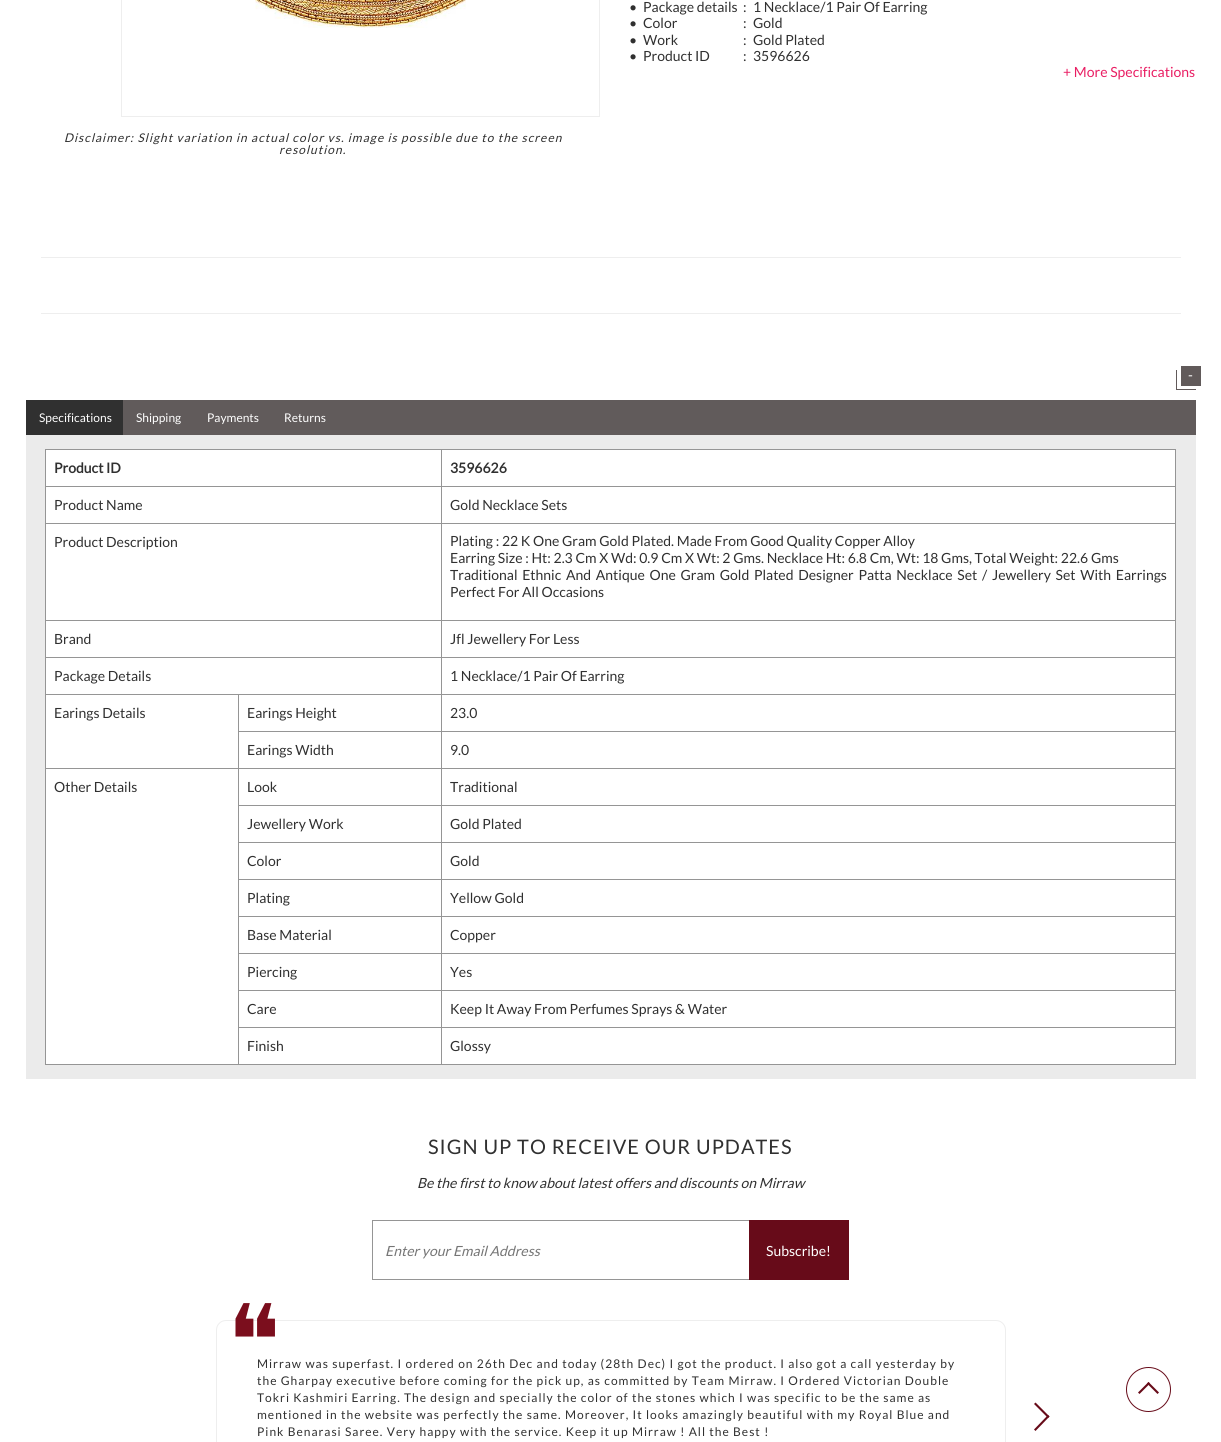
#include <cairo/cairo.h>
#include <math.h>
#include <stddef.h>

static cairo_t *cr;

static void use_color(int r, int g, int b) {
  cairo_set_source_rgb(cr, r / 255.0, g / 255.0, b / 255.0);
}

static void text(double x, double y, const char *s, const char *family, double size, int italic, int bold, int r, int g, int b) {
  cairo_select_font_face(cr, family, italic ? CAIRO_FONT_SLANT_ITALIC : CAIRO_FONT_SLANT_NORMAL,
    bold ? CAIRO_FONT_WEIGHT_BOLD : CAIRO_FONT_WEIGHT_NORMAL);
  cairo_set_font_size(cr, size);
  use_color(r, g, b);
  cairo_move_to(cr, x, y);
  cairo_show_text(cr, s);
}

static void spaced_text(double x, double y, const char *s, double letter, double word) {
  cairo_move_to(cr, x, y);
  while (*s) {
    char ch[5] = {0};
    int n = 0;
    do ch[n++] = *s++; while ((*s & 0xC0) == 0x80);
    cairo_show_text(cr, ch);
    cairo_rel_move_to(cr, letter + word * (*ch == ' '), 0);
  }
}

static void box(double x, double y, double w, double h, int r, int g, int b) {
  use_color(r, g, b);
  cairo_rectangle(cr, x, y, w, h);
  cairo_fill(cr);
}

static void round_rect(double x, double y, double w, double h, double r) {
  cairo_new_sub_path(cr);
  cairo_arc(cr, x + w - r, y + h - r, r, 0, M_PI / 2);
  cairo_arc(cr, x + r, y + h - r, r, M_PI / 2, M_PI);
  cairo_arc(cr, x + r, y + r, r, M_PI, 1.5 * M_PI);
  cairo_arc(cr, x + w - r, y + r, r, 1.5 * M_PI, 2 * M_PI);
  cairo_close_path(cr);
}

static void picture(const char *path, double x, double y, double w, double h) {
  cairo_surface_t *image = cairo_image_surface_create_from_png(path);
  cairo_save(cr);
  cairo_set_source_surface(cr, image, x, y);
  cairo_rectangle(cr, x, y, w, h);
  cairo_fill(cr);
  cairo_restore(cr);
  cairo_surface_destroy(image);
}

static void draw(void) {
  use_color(255, 255, 255);
  cairo_paint(cr);
  cairo_rectangle(cr, 121.5, -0.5, 478, 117);
  use_color(238, 238, 238);
  cairo_set_line_width(cr, 1);
  cairo_stroke(cr);
  picture("img_01.png", 255, 0, 211, 28);
  box(41, 257, 1140, 1, 238, 238, 238);
  box(41, 313, 1140, 1, 238, 238, 238);
  box(1176, 389, 20, 1, 97, 90, 90);
  box(1176, 370, 1, 20, 97, 90, 90);
  box(1181, 366, 20, 20, 97, 90, 90);
  box(26, 435, 1170, 644, 235, 235, 235);
  box(123, 400, 1073, 35, 97, 91, 91);
  box(26, 400, 97, 35, 48, 48, 48);
  box(46, 450, 1129, 614, 255, 255, 255);
  box(45, 449, 1131, 1, 149, 149, 149);
  box(1175, 449, 1, 616, 149, 149, 149);
  box(45, 1064, 1131, 1, 149, 149, 149);
  box(45, 449, 1, 616, 149, 149, 149);
  box(441, 486, 735, 1, 149, 149, 149);
  box(441, 523, 735, 1, 149, 149, 149);
  box(441, 620, 735, 1, 149, 149, 149);
  box(441, 657, 735, 1, 149, 149, 149);
  box(441, 694, 735, 1, 149, 149, 149);
  box(441, 731, 735, 1, 149, 149, 149);
  box(441, 768, 735, 1, 149, 149, 149);
  box(441, 805, 735, 1, 149, 149, 149);
  box(441, 842, 735, 1, 149, 149, 149);
  box(441, 879, 735, 1, 149, 149, 149);
  box(441, 916, 735, 1, 149, 149, 149);
  box(441, 953, 735, 1, 149, 149, 149);
  box(441, 990, 735, 1, 149, 149, 149);
  box(441, 1027, 735, 1, 149, 149, 149);
  box(441, 1027, 1, 38, 149, 149, 149);
  box(238, 1027, 204, 1, 149, 149, 149);
  box(441, 990, 1, 38, 149, 149, 149);
  box(238, 990, 204, 1, 149, 149, 149);
  box(441, 953, 1, 38, 149, 149, 149);
  box(238, 953, 204, 1, 149, 149, 149);
  box(441, 916, 1, 38, 149, 149, 149);
  box(238, 916, 204, 1, 149, 149, 149);
  box(441, 879, 1, 38, 149, 149, 149);
  box(238, 879, 204, 1, 149, 149, 149);
  box(441, 842, 1, 38, 149, 149, 149);
  box(238, 842, 204, 1, 149, 149, 149);
  box(441, 805, 1, 38, 149, 149, 149);
  box(238, 805, 204, 1, 149, 149, 149);
  box(441, 768, 1, 38, 149, 149, 149);
  box(238, 768, 204, 1, 149, 149, 149);
  box(441, 731, 1, 38, 149, 149, 149);
  box(238, 731, 204, 1, 149, 149, 149);
  box(441, 694, 1, 38, 149, 149, 149);
  box(238, 694, 204, 1, 149, 149, 149);
  box(441, 657, 1, 38, 149, 149, 149);
  box(45, 657, 397, 1, 149, 149, 149);
  box(441, 620, 1, 38, 149, 149, 149);
  box(45, 620, 397, 1, 149, 149, 149);
  box(441, 523, 1, 98, 149, 149, 149);
  box(45, 523, 397, 1, 149, 149, 149);
  box(441, 486, 1, 38, 149, 149, 149);
  box(45, 486, 397, 1, 149, 149, 149);
  box(441, 449, 1, 38, 149, 149, 149);
  box(238, 1027, 1, 38, 149, 149, 149);
  box(238, 990, 1, 38, 149, 149, 149);
  box(238, 953, 1, 38, 149, 149, 149);
  box(238, 916, 1, 38, 149, 149, 149);
  box(238, 879, 1, 38, 149, 149, 149);
  box(238, 842, 1, 38, 149, 149, 149);
  box(238, 805, 1, 38, 149, 149, 149);
  box(238, 768, 1, 38, 149, 149, 149);
  box(45, 768, 194, 1, 149, 149, 149);
  box(238, 731, 1, 38, 149, 149, 149);
  box(238, 694, 1, 38, 149, 149, 149);
  box(45, 694, 194, 1, 149, 149, 149);
  cairo_rectangle(cr, 372.5, 1220.5, 379, 59);
  cairo_stroke(cr);
  box(749, 1220, 100, 60, 103, 11, 25);
  round_rect(216.5, 1320.5, 789, 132, 9.5);
  use_color(238, 238, 238);
  cairo_stroke(cr);
  use_color(103, 11, 25);
  cairo_new_path(cr);
  cairo_move_to(cr, 1035.5, 1402.5);
  cairo_line_to(cr, 1049.5, 1416.5);
  cairo_line_to(cr, 1048, 1418);
  cairo_line_to(cr, 1034, 1404);
  cairo_close_path(cr);
  cairo_fill(cr);
  cairo_new_path(cr);
  cairo_move_to(cr, 1048, 1415);
  cairo_line_to(cr, 1049.5, 1416.5);
  cairo_line_to(cr, 1035.5, 1431);
  cairo_line_to(cr, 1034, 1429.5);
  cairo_close_path(cr);
  cairo_fill(cr);
  cairo_arc(cr, 1148.5, 1389.5, 22, 0, 2 * M_PI);
  cairo_stroke(cr);
  cairo_new_path(cr);
  cairo_move_to(cr, 1148.5, 1382);
  cairo_line_to(cr, 1159, 1392.5);
  cairo_line_to(cr, 1157.5, 1394);
  cairo_line_to(cr, 1147, 1383.5);
  cairo_close_path(cr);
  cairo_fill(cr);
  cairo_new_path(cr);
  cairo_move_to(cr, 1148.5, 1382);
  cairo_line_to(cr, 1150, 1383.5);
  cairo_line_to(cr, 1139.5, 1394);
  cairo_line_to(cr, 1138, 1392.5);
  cairo_close_path(cr);
  cairo_fill(cr);
  text(629, 12, "•", "Lato", 14, 0, 0, 48, 48, 48);
  text(643, 12, "Package details", "Lato", 14, 0, 0, 48, 48, 48);
  text(743, 12, ":", "Lato", 14, 0, 0, 48, 48, 48);
  text(753, 12, "1 Necklace/1 Pair Of Earring", "Lato", 14, 0, 0, 48, 48, 48);
  text(629, 28, "•", "Lato", 14, 0, 0, 48, 48, 48);
  text(643, 28, "Color", "Lato", 14, 0, 0, 48, 48, 48);
  text(743, 28, ":", "Lato", 14, 0, 0, 48, 48, 48);
  text(753, 28, "Gold", "Lato", 14, 0, 0, 48, 48, 48);
  text(629, 45, "•", "Lato", 14, 0, 0, 48, 48, 48);
  text(643, 45, "Work", "Lato", 14, 0, 0, 48, 48, 48);
  text(743, 45, ":", "Lato", 14, 0, 0, 48, 48, 48);
  text(753, 45, "Gold Plated", "Lato", 14, 0, 0, 48, 48, 48);
  text(629, 61, "•", "Lato", 14, 0, 0, 48, 48, 48);
  text(643, 61, "Product ID", "Lato", 14, 0, 0, 48, 48, 48);
  text(743, 61, ":", "Lato", 14, 0, 0, 48, 48, 48);
  text(753, 61, "3596626", "Lato", 14, 0, 0, 48, 48, 48);
  text(1063, 77, "+ More Specifications", "Lato", 14, 0, 0, 233, 30, 99);
  cairo_select_font_face(cr, "Lato", CAIRO_FONT_SLANT_ITALIC, CAIRO_FONT_WEIGHT_NORMAL);
  cairo_set_font_size(cr, 12);
  use_color(48, 48, 48);
  spaced_text(64, 142, "Disclaimer: Slight variation in actual color vs. image is possible due to the screen", 1, 0);
  spaced_text(279, 154, "resolution.", 1, 0);
  text(1188, 380, "-", "Lato", 14, 0, 0, 255, 255, 255);
  text(39, 422, "Specifications", "Lato", 12, 0, 0, 255, 255, 255);
  text(136, 422, "Shipping", "Lato", 12, 0, 0, 255, 255, 255);
  text(207, 422, "Payments", "Lato", 12, 0, 0, 255, 255, 255);
  text(284, 422, "Returns", "Lato", 12, 0, 0, 255, 255, 255);
  text(54, 473, "Product ID", "Lato", 14, 0, 1, 48, 48, 48);
  text(450, 473, "3596626", "Lato", 14, 0, 1, 48, 48, 48);
  text(54, 510, "Product Name", "Lato", 14, 0, 0, 48, 48, 48);
  text(450, 510, "Gold Necklace Sets", "Lato", 14, 0, 0, 48, 48, 48);
  text(54, 547, "Product Description", "Lato", 14, 0, 0, 48, 48, 48);
  text(450, 546, "Plating : 22 K One Gram Gold Plated. Made From Good Quality Copper Alloy", "Lato", 14, 0, 0, 48, 48, 48);
  text(450, 563, "Earring Size : Ht: 2.3 Cm X Wd: 0.9 Cm X Wt: 2 Gms. Necklace Ht: 6.8 Cm, Wt: 18 Gms, Total Weight: 22.6 Gms", "Lato", 14, 0, 0, 48, 48, 48);
  spaced_text(450, 580, "Traditional Ethnic And Antique One Gram Gold Plated Designer Patta Necklace Set / Jewellery Set With Earrings", 0, 2);
  text(450, 597, "Perfect For All Occasions", "Lato", 14, 0, 0, 48, 48, 48);
  text(54, 644, "Brand", "Lato", 14, 0, 0, 48, 48, 48);
  text(450, 644, "Jfl Jewellery For Less", "Lato", 14, 0, 0, 48, 48, 48);
  text(54, 681, "Package Details", "Lato", 14, 0, 0, 48, 48, 48);
  text(450, 681, "1 Necklace/1 Pair Of Earring", "Lato", 14, 0, 0, 48, 48, 48);
  text(54, 718, "Earings Details", "Lato", 14, 0, 0, 48, 48, 48);
  text(247, 718, "Earings Height", "Lato", 14, 0, 0, 48, 48, 48);
  text(450, 718, "23.0", "Lato", 14, 0, 0, 48, 48, 48);
  text(247, 755, "Earings Width", "Lato", 14, 0, 0, 48, 48, 48);
  text(450, 755, "9.0", "Lato", 14, 0, 0, 48, 48, 48);
  text(54, 792, "Other Details", "Lato", 14, 0, 0, 48, 48, 48);
  text(247, 792, "Look", "Lato", 14, 0, 0, 48, 48, 48);
  text(450, 792, "Traditional", "Lato", 14, 0, 0, 48, 48, 48);
  text(247, 829, "Jewellery Work", "Lato", 14, 0, 0, 48, 48, 48);
  text(450, 829, "Gold Plated", "Lato", 14, 0, 0, 48, 48, 48);
  text(247, 866, "Color", "Lato", 14, 0, 0, 48, 48, 48);
  text(450, 866, "Gold", "Lato", 14, 0, 0, 48, 48, 48);
  text(247, 903, "Plating", "Lato", 14, 0, 0, 48, 48, 48);
  text(450, 903, "Yellow Gold", "Lato", 14, 0, 0, 48, 48, 48);
  text(247, 940, "Base Material", "Lato", 14, 0, 0, 48, 48, 48);
  text(450, 940, "Copper", "Lato", 14, 0, 0, 48, 48, 48);
  text(247, 977, "Piercing", "Lato", 14, 0, 0, 48, 48, 48);
  text(450, 977, "Yes", "Lato", 14, 0, 0, 48, 48, 48);
  text(247, 1014, "Care", "Lato", 14, 0, 0, 48, 48, 48);
  text(450, 1014, "Keep It Away From Perfumes Sprays & Water", "Lato", 14, 0, 0, 48, 48, 48);
  text(247, 1051, "Finish", "Lato", 14, 0, 0, 48, 48, 48);
  text(450, 1051, "Glossy", "Lato", 14, 0, 0, 48, 48, 48);
  cairo_set_font_size(cr, 20);
  spaced_text(428, 1154, "SIGN UP TO RECEIVE OUR UPDATES", 1, 0);
  text(417, 1188, "Be the first to know about latest offers and discounts on Mirraw", "Lato", 14, 1, 0, 48, 48, 48);
  text(385, 1256, "Enter your Email Address", "Lato", 14, 1, 0, 117, 117, 117);
  text(766, 1256, "Subscribe!", "Lato", 14, 0, 0, 255, 255, 255);
  cairo_select_font_face(cr, "DejaVu Sans", CAIRO_FONT_SLANT_NORMAL, CAIRO_FONT_WEIGHT_NORMAL);
  cairo_set_font_size(cr, 100);
  use_color(123, 14, 29);
  spaced_text(227, 1376, "❝", 1, 0);
  cairo_select_font_face(cr, "Lato", CAIRO_FONT_SLANT_NORMAL, CAIRO_FONT_WEIGHT_NORMAL);
  cairo_set_font_size(cr, 12);
  use_color(48, 48, 48);
  spaced_text(257, 1368, "Mirraw was superfast. I ordered on 26th Dec and today (28th Dec) I got the product. I also got a call yesterday by", 1, 0);
  spaced_text(257, 1385, "the Gharpay executive before coming for the pick up, as committed by Team Mirraw. I Ordered Victorian Double", 1, 0);
  spaced_text(257, 1402, "Tokri Kashmiri Earring. The design and specially the color of the stones which I was specific to be the same as", 1, 0);
  spaced_text(257, 1419, "mentioned in the website was perfectly the same. Moreover, It looks amazingly beautiful with my Royal Blue and", 1, 0);
  spaced_text(257, 1436, "Pink Benarasi Saree. Very happy with the service. Keep it up Mirraw ! All the Best !", 1, 0);
}

int main(void) {
  cairo_surface_t *surface = cairo_image_surface_create(CAIRO_FORMAT_RGB24, 1221, 1442);
  cr = cairo_create(surface);
  cairo_font_options_t *options = cairo_font_options_create();
  cairo_font_options_set_hint_metrics(options, CAIRO_HINT_METRICS_OFF);
  cairo_font_options_set_hint_style(options, CAIRO_HINT_STYLE_NONE);
  cairo_set_font_options(cr, options);
  cairo_set_miter_limit(cr, 4);
  draw();
  cairo_surface_write_to_png(surface, "out.png");
  cairo_font_options_destroy(options);
  cairo_destroy(cr);
  cairo_surface_destroy(surface);
  return 0;
}
